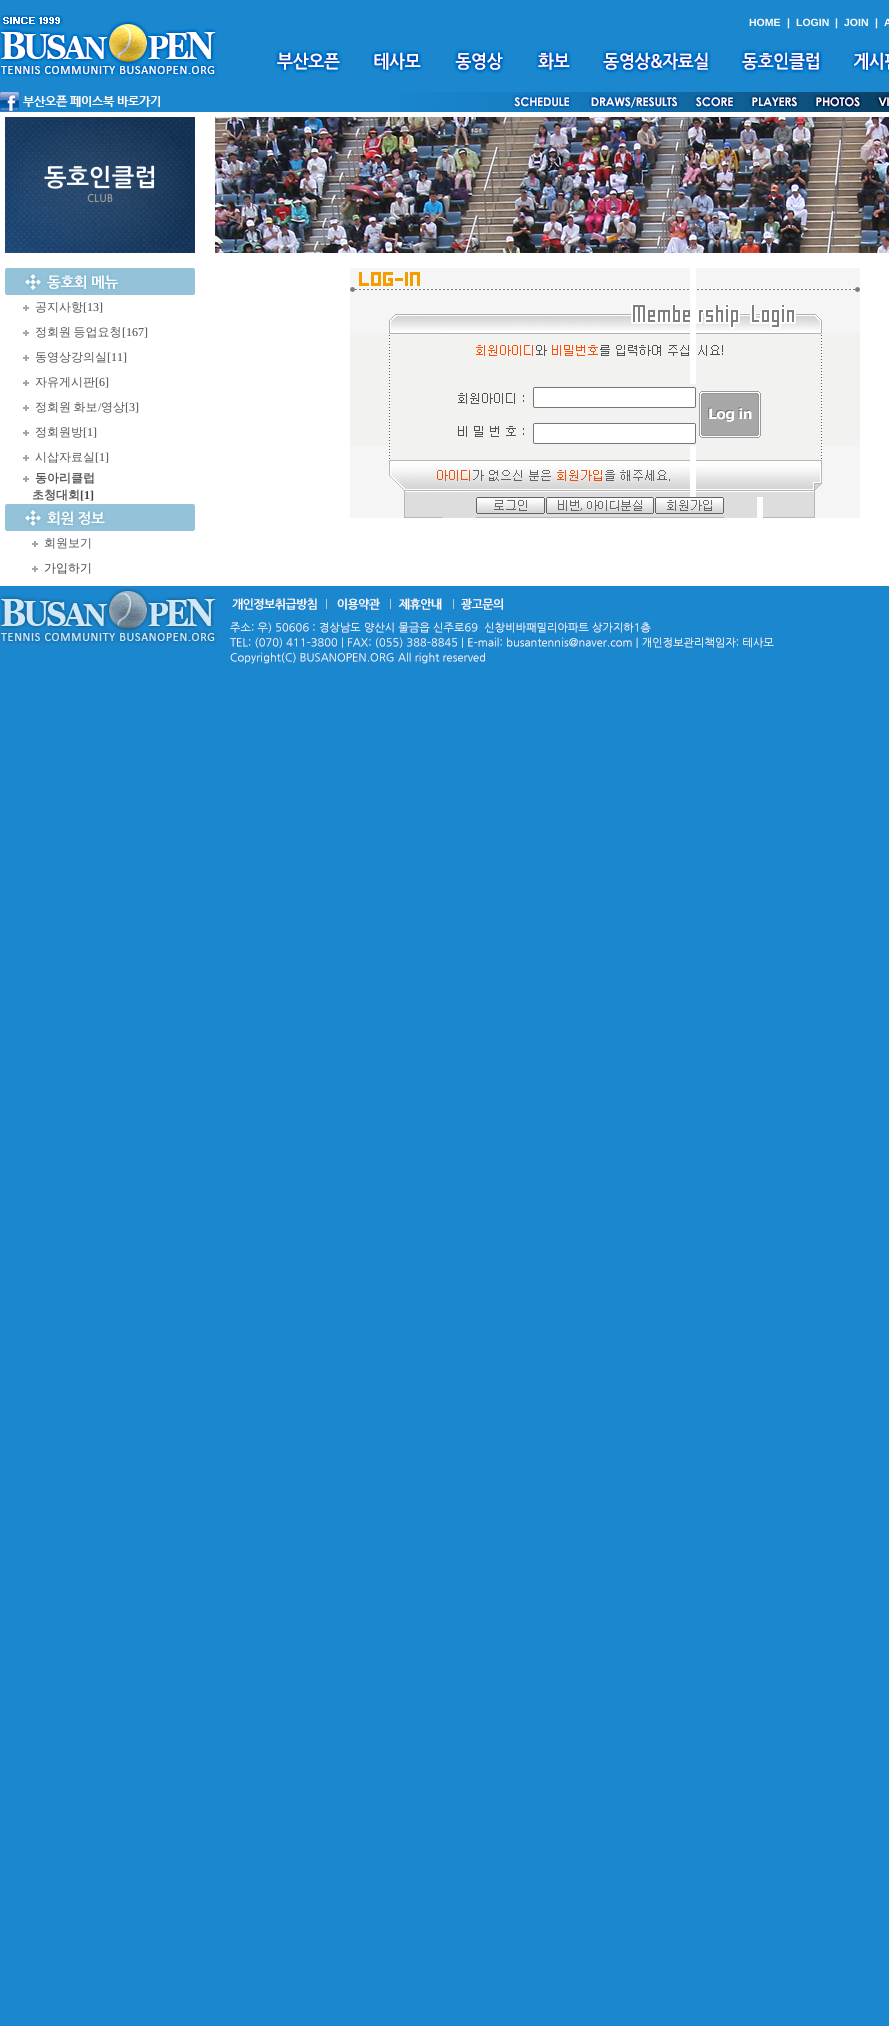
#include <cairo/cairo.h>
#include <math.h>
#include <stddef.h>

static cairo_t *cr;

static void use_color(int r, int g, int b) {
  cairo_set_source_rgb(cr, r / 255.0, g / 255.0, b / 255.0);
}

static void text(double x, double y, const char *s, const char *family, double size, int italic, int bold, int r, int g, int b) {
  cairo_select_font_face(cr, family, italic ? CAIRO_FONT_SLANT_ITALIC : CAIRO_FONT_SLANT_NORMAL,
    bold ? CAIRO_FONT_WEIGHT_BOLD : CAIRO_FONT_WEIGHT_NORMAL);
  cairo_set_font_size(cr, size);
  use_color(r, g, b);
  cairo_move_to(cr, x, y);
  cairo_show_text(cr, s);
}

static void spaced_text(double x, double y, const char *s, double letter, double word) {
  cairo_move_to(cr, x, y);
  while (*s) {
    char ch[5] = {0};
    int n = 0;
    do ch[n++] = *s++; while ((*s & 0xC0) == 0x80);
    cairo_show_text(cr, ch);
    cairo_rel_move_to(cr, letter + word * (*ch == ' '), 0);
  }
}

static void box(double x, double y, double w, double h, int r, int g, int b) {
  use_color(r, g, b);
  cairo_rectangle(cr, x, y, w, h);
  cairo_fill(cr);
}

static void round_rect(double x, double y, double w, double h, double r) {
  cairo_new_sub_path(cr);
  cairo_arc(cr, x + w - r, y + h - r, r, 0, M_PI / 2);
  cairo_arc(cr, x + r, y + h - r, r, M_PI / 2, M_PI);
  cairo_arc(cr, x + r, y + r, r, M_PI, 1.5 * M_PI);
  cairo_arc(cr, x + w - r, y + r, r, 1.5 * M_PI, 2 * M_PI);
  cairo_close_path(cr);
}

static void picture(const char *path, double x, double y, double w, double h) {
  cairo_surface_t *image = cairo_image_surface_create_from_png(path);
  cairo_save(cr);
  cairo_set_source_surface(cr, image, x, y);
  cairo_rectangle(cr, x, y, w, h);
  cairo_fill(cr);
  cairo_restore(cr);
  cairo_surface_destroy(image);
}

static void draw(void) {
  use_color(26, 135, 207);
  cairo_paint(cr);
  picture("img_01.png", 0, 15, 217, 62);
  picture("img_02.png", 274, 49, 69, 24);
  picture("img_03.png", 371, 49, 52, 24);
  picture("img_04.png", 453, 49, 53, 25);
  picture("img_05.png", 535, 49, 37, 24);
  picture("img_06.png", 600, 49, 111, 25);
  picture("img_07.png", 739, 49, 84, 25);
  picture("img_08.png", 851, 49, 38, 24);
  picture("img_09.png", 0, 92, 889, 20);
  box(0, 112, 889, 474, 255, 255, 255);
  picture("img_10.png", 5, 117, 190, 136);
  picture("img_11.png", 5, 268, 190, 27);
  picture("img_12.png", 23, 305, 6, 6);
  picture("img_12.png", 23, 330, 6, 6);
  picture("img_12.png", 23, 355, 6, 6);
  picture("img_12.png", 23, 380, 6, 6);
  picture("img_12.png", 23, 405, 6, 6);
  picture("img_12.png", 23, 430, 6, 6);
  picture("img_12.png", 23, 455, 6, 6);
  picture("img_12.png", 23, 476, 6, 6);
  picture("img_13.png", 5, 504, 190, 27);
  picture("img_12.png", 32, 541, 6, 6);
  picture("img_12.png", 32, 566, 6, 6);
  picture("img_14.png", 215, 117, 674, 136);
  picture("img_15.png", 350, 268, 92, 65);
  picture("img_16.png", 442, 268, 91, 63);
  picture("img_17.png", 533, 268, 157, 63);
  picture("img_18.png", 696, 268, 67, 63);
  picture("img_19.png", 763, 268, 97, 65);
  picture("img_20.png", 350, 333, 92, 51);
  picture("img_21.png", 442, 333, 91, 51);
  picture("img_22.png", 533, 333, 157, 51);
  picture("img_23.png", 696, 333, 67, 51);
  picture("img_24.png", 763, 333, 97, 51);
  picture("img_25.png", 350, 384, 92, 31);
  picture("img_26.png", 442, 384, 91, 31);
  box(533, 384, 163, 62, 242, 242, 241);
  use_color(255, 255, 255);
  round_rect(533.5, 387.5, 162, 20, 1.5);
  cairo_fill_preserve(cr);
  use_color(118, 118, 118);
  cairo_set_line_width(cr, 1);
  cairo_stroke(cr);
  use_color(255, 255, 255);
  round_rect(533.5, 423.5, 162, 20, 1.5);
  cairo_fill_preserve(cr);
  use_color(118, 118, 118);
  cairo_stroke(cr);
  picture("img_27.png", 696, 384, 67, 62);
  picture("img_28.png", 763, 384, 97, 31);
  picture("img_29.png", 350, 415, 92, 31);
  picture("img_30.png", 442, 415, 91, 31);
  picture("img_31.png", 763, 415, 97, 31);
  picture("img_32.png", 350, 446, 92, 51);
  picture("img_33.png", 442, 446, 91, 51);
  picture("img_34.png", 533, 446, 157, 51);
  picture("img_35.png", 696, 446, 67, 51);
  picture("img_36.png", 763, 446, 97, 51);
  picture("img_37.png", 350, 497, 92, 21);
  box(442, 497, 34, 21, 221, 221, 221);
  picture("img_38.png", 476, 497, 70, 21);
  picture("img_39.png", 546, 497, 109, 21);
  picture("img_40.png", 655, 497, 69, 21);
  box(724, 497, 33, 21, 221, 221, 221);
  picture("img_41.png", 763, 497, 97, 21);
  picture("img_42.png", 0, 588, 774, 76);
  text(749, 26, "HOME", "Liberation Sans", 10.5, 0, 1, 255, 255, 255);
  text(787, 26, "|", "Liberation Sans", 10.5, 0, 1, 255, 255, 255);
  text(796, 26, "LOGIN", "Liberation Sans", 10.5, 0, 1, 255, 255, 255);
  text(835, 26, "|", "Liberation Sans", 10.5, 0, 1, 255, 255, 255);
  text(844, 26, "JOIN", "Liberation Sans", 10.5, 0, 1, 255, 255, 255);
  text(875, 26, "|", "Liberation Sans", 10.5, 0, 1, 255, 255, 255);
  text(884, 26, "A", "Liberation Sans", 10.5, 0, 1, 255, 255, 255);
  text(44, 186, "동호인클럽", "NanumGothic", 24, 0, 1, 255, 255, 255);
  text(87, 202, "CLUB", "NanumGothic", 10.5, 0, 1, 153, 153, 153);
  text(35, 311, "공지사항", "WenQuanYi Zen Hei Medium", 12, 0, 0, 85, 85, 85);
  text(83, 311, "[13]", "Liberation Serif", 12, 0, 0, 68, 68, 68);
  cairo_select_font_face(cr, "WenQuanYi Zen Hei Medium", CAIRO_FONT_SLANT_NORMAL, CAIRO_FONT_WEIGHT_NORMAL);
  use_color(85, 85, 85);
  spaced_text(35, 336, "정회원 등업요청", 0, -1);
  text(122, 336, "[167]", "Liberation Serif", 12, 0, 0, 68, 68, 68);
  text(35, 361, "동영상강의실", "WenQuanYi Zen Hei Medium", 12, 0, 0, 85, 85, 85);
  text(107, 361, "[11]", "Liberation Serif", 12, 0, 0, 68, 68, 68);
  text(35, 386, "자유게시판", "WenQuanYi Zen Hei Medium", 12, 0, 0, 85, 85, 85);
  text(95, 386, "[6]", "Liberation Serif", 12, 0, 0, 68, 68, 68);
  cairo_select_font_face(cr, "WenQuanYi Zen Hei Medium", CAIRO_FONT_SLANT_NORMAL, CAIRO_FONT_WEIGHT_NORMAL);
  use_color(85, 85, 85);
  spaced_text(35, 411, "정회원 화보", 0, -1);
  text(98, 411, "/", "Liberation Serif", 12, 0, 0, 85, 85, 85);
  text(101, 411, "영상", "WenQuanYi Zen Hei Medium", 12, 0, 0, 85, 85, 85);
  text(125, 411, "[3]", "Liberation Serif", 12, 0, 0, 68, 68, 68);
  text(35, 436, "정회원방", "WenQuanYi Zen Hei Medium", 12, 0, 0, 85, 85, 85);
  text(83, 436, "[1]", "Liberation Serif", 12, 0, 0, 68, 68, 68);
  text(35, 461, "시삽자료실", "WenQuanYi Zen Hei Medium", 12, 0, 0, 85, 85, 85);
  text(95, 461, "[1]", "Liberation Serif", 12, 0, 0, 68, 68, 68);
  text(35, 482, "동아리클럽", "WenQuanYi Zen Hei", 12, 0, 1, 85, 85, 85);
  text(32, 499, "초청대회", "WenQuanYi Zen Hei", 12, 0, 1, 85, 85, 85);
  text(80, 499, "[1]", "Liberation Serif", 12, 0, 1, 68, 68, 68);
  text(44, 547, "회원보기", "WenQuanYi Zen Hei Medium", 12, 0, 0, 85, 85, 85);
  text(44, 572, "가입하기", "WenQuanYi Zen Hei Medium", 12, 0, 0, 68, 68, 68);
}

int main(void) {
  cairo_surface_t *surface = cairo_image_surface_create(CAIRO_FORMAT_RGB24, 889, 2026);
  cr = cairo_create(surface);
  cairo_font_options_t *options = cairo_font_options_create();
  cairo_font_options_set_hint_metrics(options, CAIRO_HINT_METRICS_OFF);
  cairo_font_options_set_hint_style(options, CAIRO_HINT_STYLE_NONE);
  cairo_set_font_options(cr, options);
  cairo_set_miter_limit(cr, 4);
  draw();
  cairo_surface_write_to_png(surface, "out.png");
  cairo_font_options_destroy(options);
  cairo_destroy(cr);
  cairo_surface_destroy(surface);
  return 0;
}
